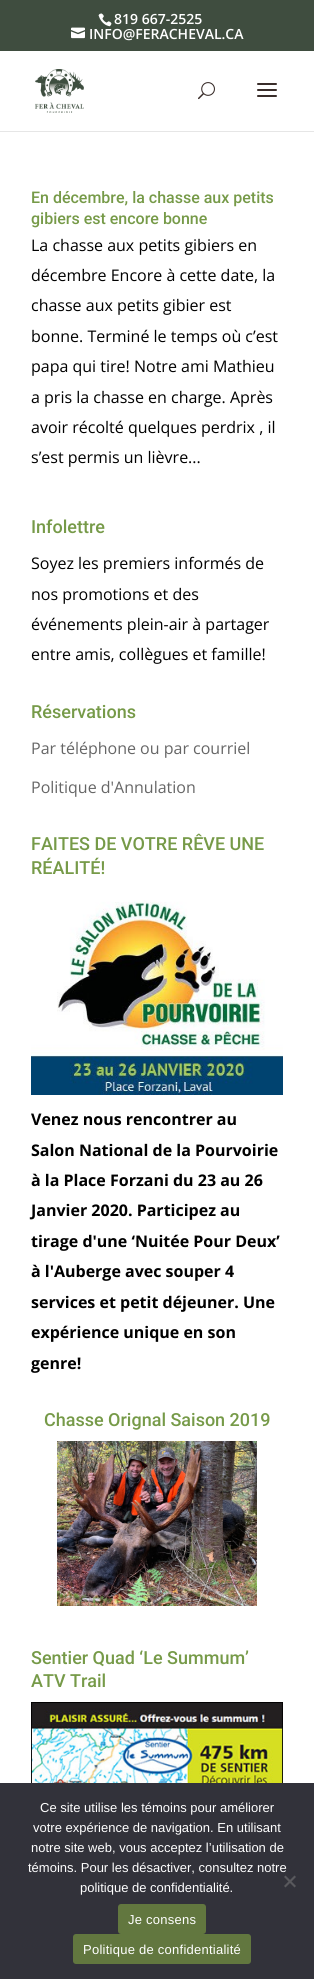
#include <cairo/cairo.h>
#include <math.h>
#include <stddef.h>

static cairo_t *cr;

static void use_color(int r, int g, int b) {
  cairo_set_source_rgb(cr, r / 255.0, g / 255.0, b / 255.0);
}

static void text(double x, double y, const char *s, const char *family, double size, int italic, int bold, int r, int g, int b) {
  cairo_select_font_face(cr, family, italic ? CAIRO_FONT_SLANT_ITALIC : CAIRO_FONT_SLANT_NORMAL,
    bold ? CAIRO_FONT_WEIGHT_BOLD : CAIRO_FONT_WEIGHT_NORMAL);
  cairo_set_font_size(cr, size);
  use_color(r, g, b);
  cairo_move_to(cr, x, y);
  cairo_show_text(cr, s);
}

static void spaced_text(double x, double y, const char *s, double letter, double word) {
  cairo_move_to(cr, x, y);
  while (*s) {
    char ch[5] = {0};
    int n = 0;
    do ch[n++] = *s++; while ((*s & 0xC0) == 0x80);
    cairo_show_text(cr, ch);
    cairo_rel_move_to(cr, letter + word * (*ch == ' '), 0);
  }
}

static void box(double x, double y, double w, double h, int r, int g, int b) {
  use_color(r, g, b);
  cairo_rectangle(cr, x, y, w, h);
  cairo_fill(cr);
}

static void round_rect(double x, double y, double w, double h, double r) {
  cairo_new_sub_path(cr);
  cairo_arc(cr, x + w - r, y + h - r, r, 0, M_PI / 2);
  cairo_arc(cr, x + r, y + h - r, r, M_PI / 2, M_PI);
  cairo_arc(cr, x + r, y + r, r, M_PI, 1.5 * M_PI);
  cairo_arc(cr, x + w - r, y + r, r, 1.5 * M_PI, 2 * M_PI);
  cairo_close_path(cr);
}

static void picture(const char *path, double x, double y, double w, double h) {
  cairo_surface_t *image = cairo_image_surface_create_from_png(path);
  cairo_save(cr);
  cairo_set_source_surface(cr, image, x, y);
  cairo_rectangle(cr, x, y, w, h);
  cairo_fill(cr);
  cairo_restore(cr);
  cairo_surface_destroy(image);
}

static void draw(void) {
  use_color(255, 255, 255);
  cairo_paint(cr);
  box(0, 0, 314, 51, 63, 77, 63);
  picture("img_01.png", 98, 13, 14, 14);
  picture("img_02.png", 71, 27, 14, 12);
  box(0, 131, 314, 1, 230, 230, 230);
  picture("img_03.png", 35, 69, 49, 44);
  picture("img_04.png", 198, 82, 17, 18);
  picture("img_05.png", 257, 83, 20, 14);
  picture("img_06.png", 31, 900, 252, 195);
  picture("img_07.png", 57, 1441, 200, 165);
  picture("img_08.png", 31, 1702, 252, 81);
  box(0, 1783, 314, 196, 50, 50, 58);
  use_color(89, 89, 93);
  cairo_new_path(cr);
  cairo_move_to(cr, 294.5, 1875.5);
  cairo_line_to(cr, 296, 1877);
  cairo_line_to(cr, 285.5, 1887.5);
  cairo_line_to(cr, 284, 1886);
  cairo_close_path(cr);
  cairo_fill(cr);
  cairo_new_path(cr);
  cairo_move_to(cr, 284, 1877);
  cairo_line_to(cr, 285.5, 1875.5);
  cairo_line_to(cr, 296, 1886);
  cairo_line_to(cr, 294.5, 1887.5);
  cairo_close_path(cr);
  cairo_fill(cr);
  use_color(98, 119, 63);
  round_rect(118, 1904, 88, 30, 3);
  cairo_fill(cr);
  round_rect(73, 1934, 178, 30, 3);
  cairo_fill(cr);
  text(114, 24, "819 667-2525", "Open Sans SemiBold", 14, 0, 0, 255, 255, 255);
  text(89, 39, "INFO@FERACHEVAL.CA", "Open Sans SemiBold", 14, 0, 0, 255, 255, 255);
  text(31, 203, "En décembre, la chasse aux petits", "Roboto Medium", 16, 0, 0, 118, 154, 72);
  text(31, 224, "gibiers est encore bonne", "Roboto Medium", 16, 0, 0, 118, 154, 72);
  text(31, 251, "La chasse aux petits gibiers en", "Open Sans", 16, 0, 0, 0, 0, 0);
  text(31, 281, "décembre Encore à cette date, la", "Open Sans", 16, 0, 0, 0, 0, 0);
  text(31, 311, "chasse aux petits gibier est", "Open Sans", 16, 0, 0, 0, 0, 0);
  text(31, 342, "bonne. Terminé le temps où c’est", "Open Sans", 16, 0, 0, 0, 0, 0);
  text(31, 372, "papa qui tire! Notre ami Mathieu", "Open Sans", 16, 0, 0, 0, 0, 0);
  text(31, 403, "a pris la chasse en charge. Après", "Open Sans", 16, 0, 0, 0, 0, 0);
  text(31, 433, "avoir récolté quelques perdrix , il", "Open Sans", 16, 0, 0, 0, 0, 0);
  text(31, 463, "s’est permis un lièvre...", "Open Sans", 16, 0, 0, 0, 0, 0);
  text(31, 533, "Infolettre", "Roboto Medium", 18, 0, 0, 118, 154, 72);
  text(31, 569, "Soyez les premiers informés de", "Open Sans", 16, 0, 0, 0, 0, 0);
  text(31, 600, "nos promotions et des", "Open Sans", 16, 0, 0, 0, 0, 0);
  text(31, 630, "événements plein-air à partager", "Open Sans", 16, 0, 0, 0, 0, 0);
  text(31, 660, "entre amis, collègues et famille!", "Open Sans", 16, 0, 0, 0, 0, 0);
  text(31, 718, "Réservations", "Roboto Medium", 18, 0, 0, 118, 154, 72);
  text(31, 754, "Par téléphone ou par courriel", "Open Sans", 16, 0, 0, 102, 102, 102);
  text(31, 793, "Politique d'Annulation", "Open Sans", 16, 0, 0, 102, 102, 102);
  text(31, 850, "FAITES DE VOTRE RÊVE UNE", "Roboto Medium", 18, 0, 0, 118, 154, 72);
  text(31, 874, "RÉALITÉ!", "Roboto Medium", 18, 0, 0, 118, 154, 72);
  text(31, 1125, "Venez nous rencontrer au", "Open Sans", 16, 0, 1, 0, 0, 0);
  text(31, 1156, "Salon National de la Pourvoirie", "Open Sans", 16, 0, 1, 0, 0, 0);
  text(31, 1186, "à la Place Forzani du 23 au 26", "Open Sans", 16, 0, 1, 0, 0, 0);
  text(31, 1216, "Janvier 2020. Participez au", "Open Sans", 16, 0, 1, 0, 0, 0);
  text(31, 1247, "tirage d'une ‘Nuitée Pour Deux’", "Open Sans", 16, 0, 1, 0, 0, 0);
  text(31, 1277, "à l'Auberge avec souper 4", "Open Sans", 16, 0, 1, 0, 0, 0);
  text(31, 1308, "services et petit déjeuner. Une", "Open Sans", 16, 0, 1, 0, 0, 0);
  text(31, 1338, "expérience unique en son", "Open Sans", 16, 0, 1, 0, 0, 0);
  text(31, 1369, "genre!", "Open Sans", 16, 0, 1, 0, 0, 0);
  text(44, 1426, "Chasse Orignal Saison 2019", "Roboto Medium", 18, 0, 0, 118, 154, 72);
  text(31, 1664, "Sentier Quad ‘Le Summum’", "Roboto Medium", 18, 0, 0, 118, 154, 72);
  text(31, 1687, "ATV Trail", "Roboto Medium", 18, 0, 0, 118, 154, 72);
  text(40, 1812, "Ce site utilise les témoins pour améliorer", "Liberation Sans", 13, 0, 0, 255, 255, 255);
  text(33, 1832, "votre expérience de navigation. En utilisant", "Liberation Sans", 13, 0, 0, 255, 255, 255);
  text(31, 1852, "notre site web, vous acceptez l’utilisation de", "Liberation Sans", 13, 0, 0, 255, 255, 255);
  text(28, 1872, "témoins. Pour les désactiver, consultez notre", "Liberation Sans", 13, 0, 0, 255, 255, 255);
  text(80, 1892, "politique de confidentialité.", "Liberation Sans", 13, 0, 0, 255, 255, 255);
  spaced_text(128, 1924, "Je consens", 0.25, 0);
  spaced_text(83, 1954, "Politique de confidentialité", 0.25, 0);
}

int main(void) {
  cairo_surface_t *surface = cairo_image_surface_create(CAIRO_FORMAT_RGB24, 314, 1979);
  cr = cairo_create(surface);
  cairo_font_options_t *options = cairo_font_options_create();
  cairo_font_options_set_hint_metrics(options, CAIRO_HINT_METRICS_OFF);
  cairo_font_options_set_hint_style(options, CAIRO_HINT_STYLE_NONE);
  cairo_set_font_options(cr, options);
  cairo_set_miter_limit(cr, 4);
  draw();
  cairo_surface_write_to_png(surface, "out.png");
  cairo_font_options_destroy(options);
  cairo_destroy(cr);
  cairo_surface_destroy(surface);
  return 0;
}
